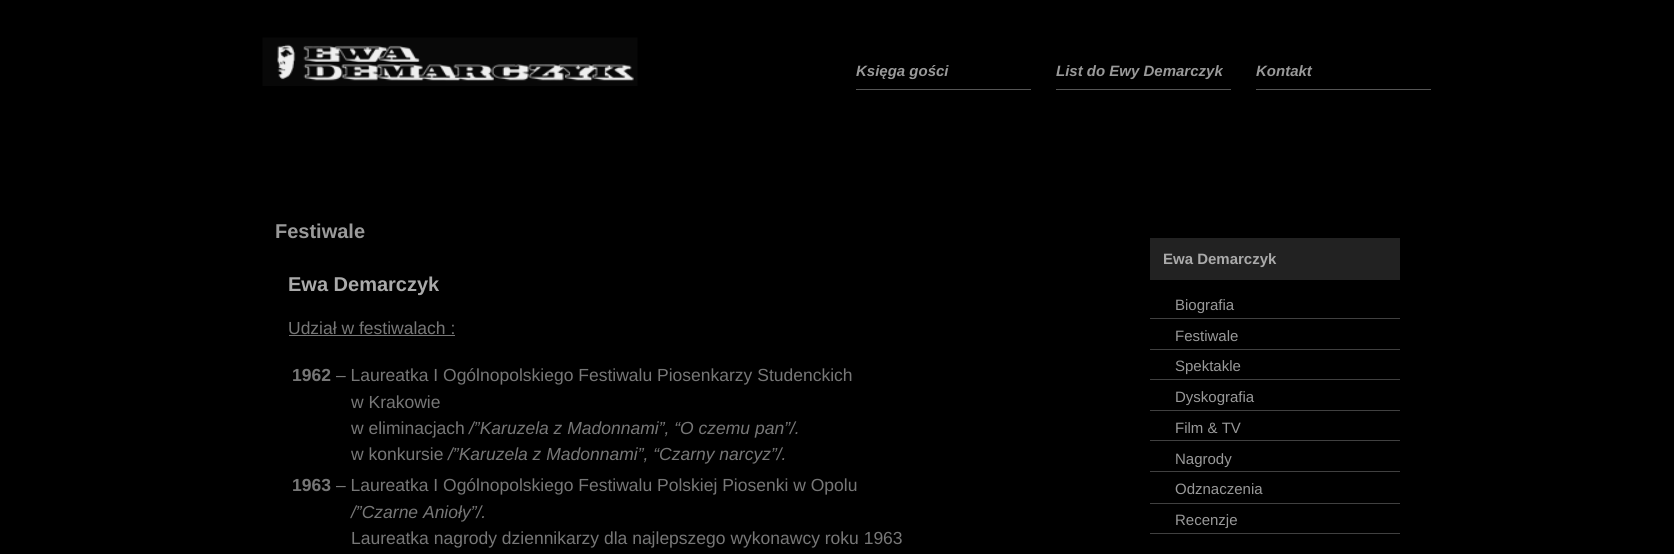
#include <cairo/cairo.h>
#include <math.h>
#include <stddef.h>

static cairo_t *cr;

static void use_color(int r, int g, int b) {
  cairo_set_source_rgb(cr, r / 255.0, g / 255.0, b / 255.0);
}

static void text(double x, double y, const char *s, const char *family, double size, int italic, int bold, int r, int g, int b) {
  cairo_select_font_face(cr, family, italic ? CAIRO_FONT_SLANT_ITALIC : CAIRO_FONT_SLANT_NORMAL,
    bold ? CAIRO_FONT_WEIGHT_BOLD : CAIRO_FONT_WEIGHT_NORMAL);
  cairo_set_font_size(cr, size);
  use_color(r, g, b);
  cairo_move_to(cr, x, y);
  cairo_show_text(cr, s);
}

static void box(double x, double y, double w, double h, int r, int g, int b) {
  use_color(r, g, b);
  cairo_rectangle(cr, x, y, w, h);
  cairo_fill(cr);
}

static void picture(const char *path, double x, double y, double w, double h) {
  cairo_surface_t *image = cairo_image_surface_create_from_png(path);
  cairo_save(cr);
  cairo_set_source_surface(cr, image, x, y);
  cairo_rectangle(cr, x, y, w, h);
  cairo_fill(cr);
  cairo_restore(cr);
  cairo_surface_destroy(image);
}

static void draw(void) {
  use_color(0, 0, 0);
  cairo_paint(cr);
  picture("img_01.png", 262, 37, 376, 49);
  box(856, 89, 175, 1, 85, 85, 85);
  box(1056, 89, 175, 1, 85, 85, 85);
  box(1256, 89, 175, 1, 85, 85, 85);
  box(289, 335, 166, 1, 119, 119, 119);
  box(1150, 238, 250, 42, 34, 34, 34);
  box(1150, 318, 250, 1, 64, 64, 64);
  box(1150, 349, 250, 1, 64, 64, 64);
  box(1150, 379, 250, 1, 64, 64, 64);
  box(1150, 410, 250, 1, 64, 64, 64);
  box(1150, 440, 250, 1, 64, 64, 64);
  box(1150, 471, 250, 1, 64, 64, 64);
  box(1150, 503, 250, 1, 64, 64, 64);
  box(1150, 533, 250, 1, 64, 64, 64);
  text(856, 76, "Księga gości", "Liberation Sans", 15, 1, 1, 153, 153, 153);
  text(1056, 76, "List do Ewy Demarczyk", "Liberation Sans", 15, 1, 1, 153, 153, 153);
  text(1256, 76, "Kontakt", "Liberation Sans", 15, 1, 1, 153, 153, 153);
  text(275, 238, "Festiwale", "Liberation Sans", 20, 0, 1, 153, 153, 153);
  text(288, 291, "Ewa Demarczyk", "Liberation Sans", 20, 0, 1, 170, 170, 170);
  text(288, 334, "Udział w festiwalach :", "Liberation Sans", 17.5, 0, 0, 119, 119, 119);
  text(292, 381, "1962", "Liberation Sans", 17.5, 0, 1, 119, 119, 119);
  text(336, 381, "– Laureatka I Ogólnopolskiego Festiwalu Piosenkarzy Studenckich", "Liberation Sans", 17.5, 0, 0, 119, 119, 119);
  text(351, 408, "w Krakowie", "Liberation Sans", 17.5, 0, 0, 119, 119, 119);
  text(351, 434, "w eliminacjach", "Liberation Sans", 17.5, 0, 0, 119, 119, 119);
  text(469, 434, "/”Karuzela z Madonnami”, “O czemu pan”/.", "Liberation Sans", 17.5, 1, 0, 119, 119, 119);
  text(351, 460, "w konkursie", "Liberation Sans", 17.5, 0, 0, 119, 119, 119);
  text(448, 460, "/”Karuzela z Madonnami”, “Czarny narcyz”/.", "Liberation Sans", 17.5, 1, 0, 119, 119, 119);
  text(292, 491, "1963", "Liberation Sans", 17.5, 0, 1, 119, 119, 119);
  text(336, 491, "– Laureatka I Ogólnopolskiego Festiwalu Polskiej Piosenki w Opolu", "Liberation Sans", 17.5, 0, 0, 119, 119, 119);
  text(351, 518, "/”Czarne Anioły”/.", "Liberation Sans", 17.5, 1, 0, 119, 119, 119);
  text(351, 544, "Laureatka nagrody dziennikarzy dla najlepszego wykonawcy roku 1963", "Liberation Sans", 17.5, 0, 0, 119, 119, 119);
  text(1163, 264, "Ewa Demarczyk", "Liberation Sans", 15, 0, 1, 170, 170, 170);
  text(1175, 310, "Biografia", "Liberation Sans", 15, 0, 0, 153, 153, 153);
  text(1175, 341, "Festiwale", "Liberation Sans", 15, 0, 0, 153, 153, 153);
  text(1175, 371, "Spektakle", "Liberation Sans", 15, 0, 0, 153, 153, 153);
  text(1175, 402, "Dyskografia", "Liberation Sans", 15, 0, 0, 153, 153, 153);
  text(1175, 433, "Film & TV", "Liberation Sans", 15, 0, 0, 153, 153, 153);
  text(1175, 464, "Nagrody", "Liberation Sans", 15, 0, 0, 153, 153, 153);
  text(1175, 494, "Odznaczenia", "Liberation Sans", 15, 0, 0, 153, 153, 153);
  text(1175, 525, "Recenzje", "Liberation Sans", 15, 0, 0, 153, 153, 153);
}

int main(void) {
  cairo_surface_t *surface = cairo_image_surface_create(CAIRO_FORMAT_RGB24, 1674, 554);
  cr = cairo_create(surface);
  cairo_font_options_t *options = cairo_font_options_create();
  cairo_font_options_set_hint_metrics(options, CAIRO_HINT_METRICS_OFF);
  cairo_font_options_set_hint_style(options, CAIRO_HINT_STYLE_NONE);
  cairo_set_font_options(cr, options);
  cairo_set_miter_limit(cr, 4);
  draw();
  cairo_surface_write_to_png(surface, "out.png");
  cairo_font_options_destroy(options);
  cairo_destroy(cr);
  cairo_surface_destroy(surface);
  return 0;
}
